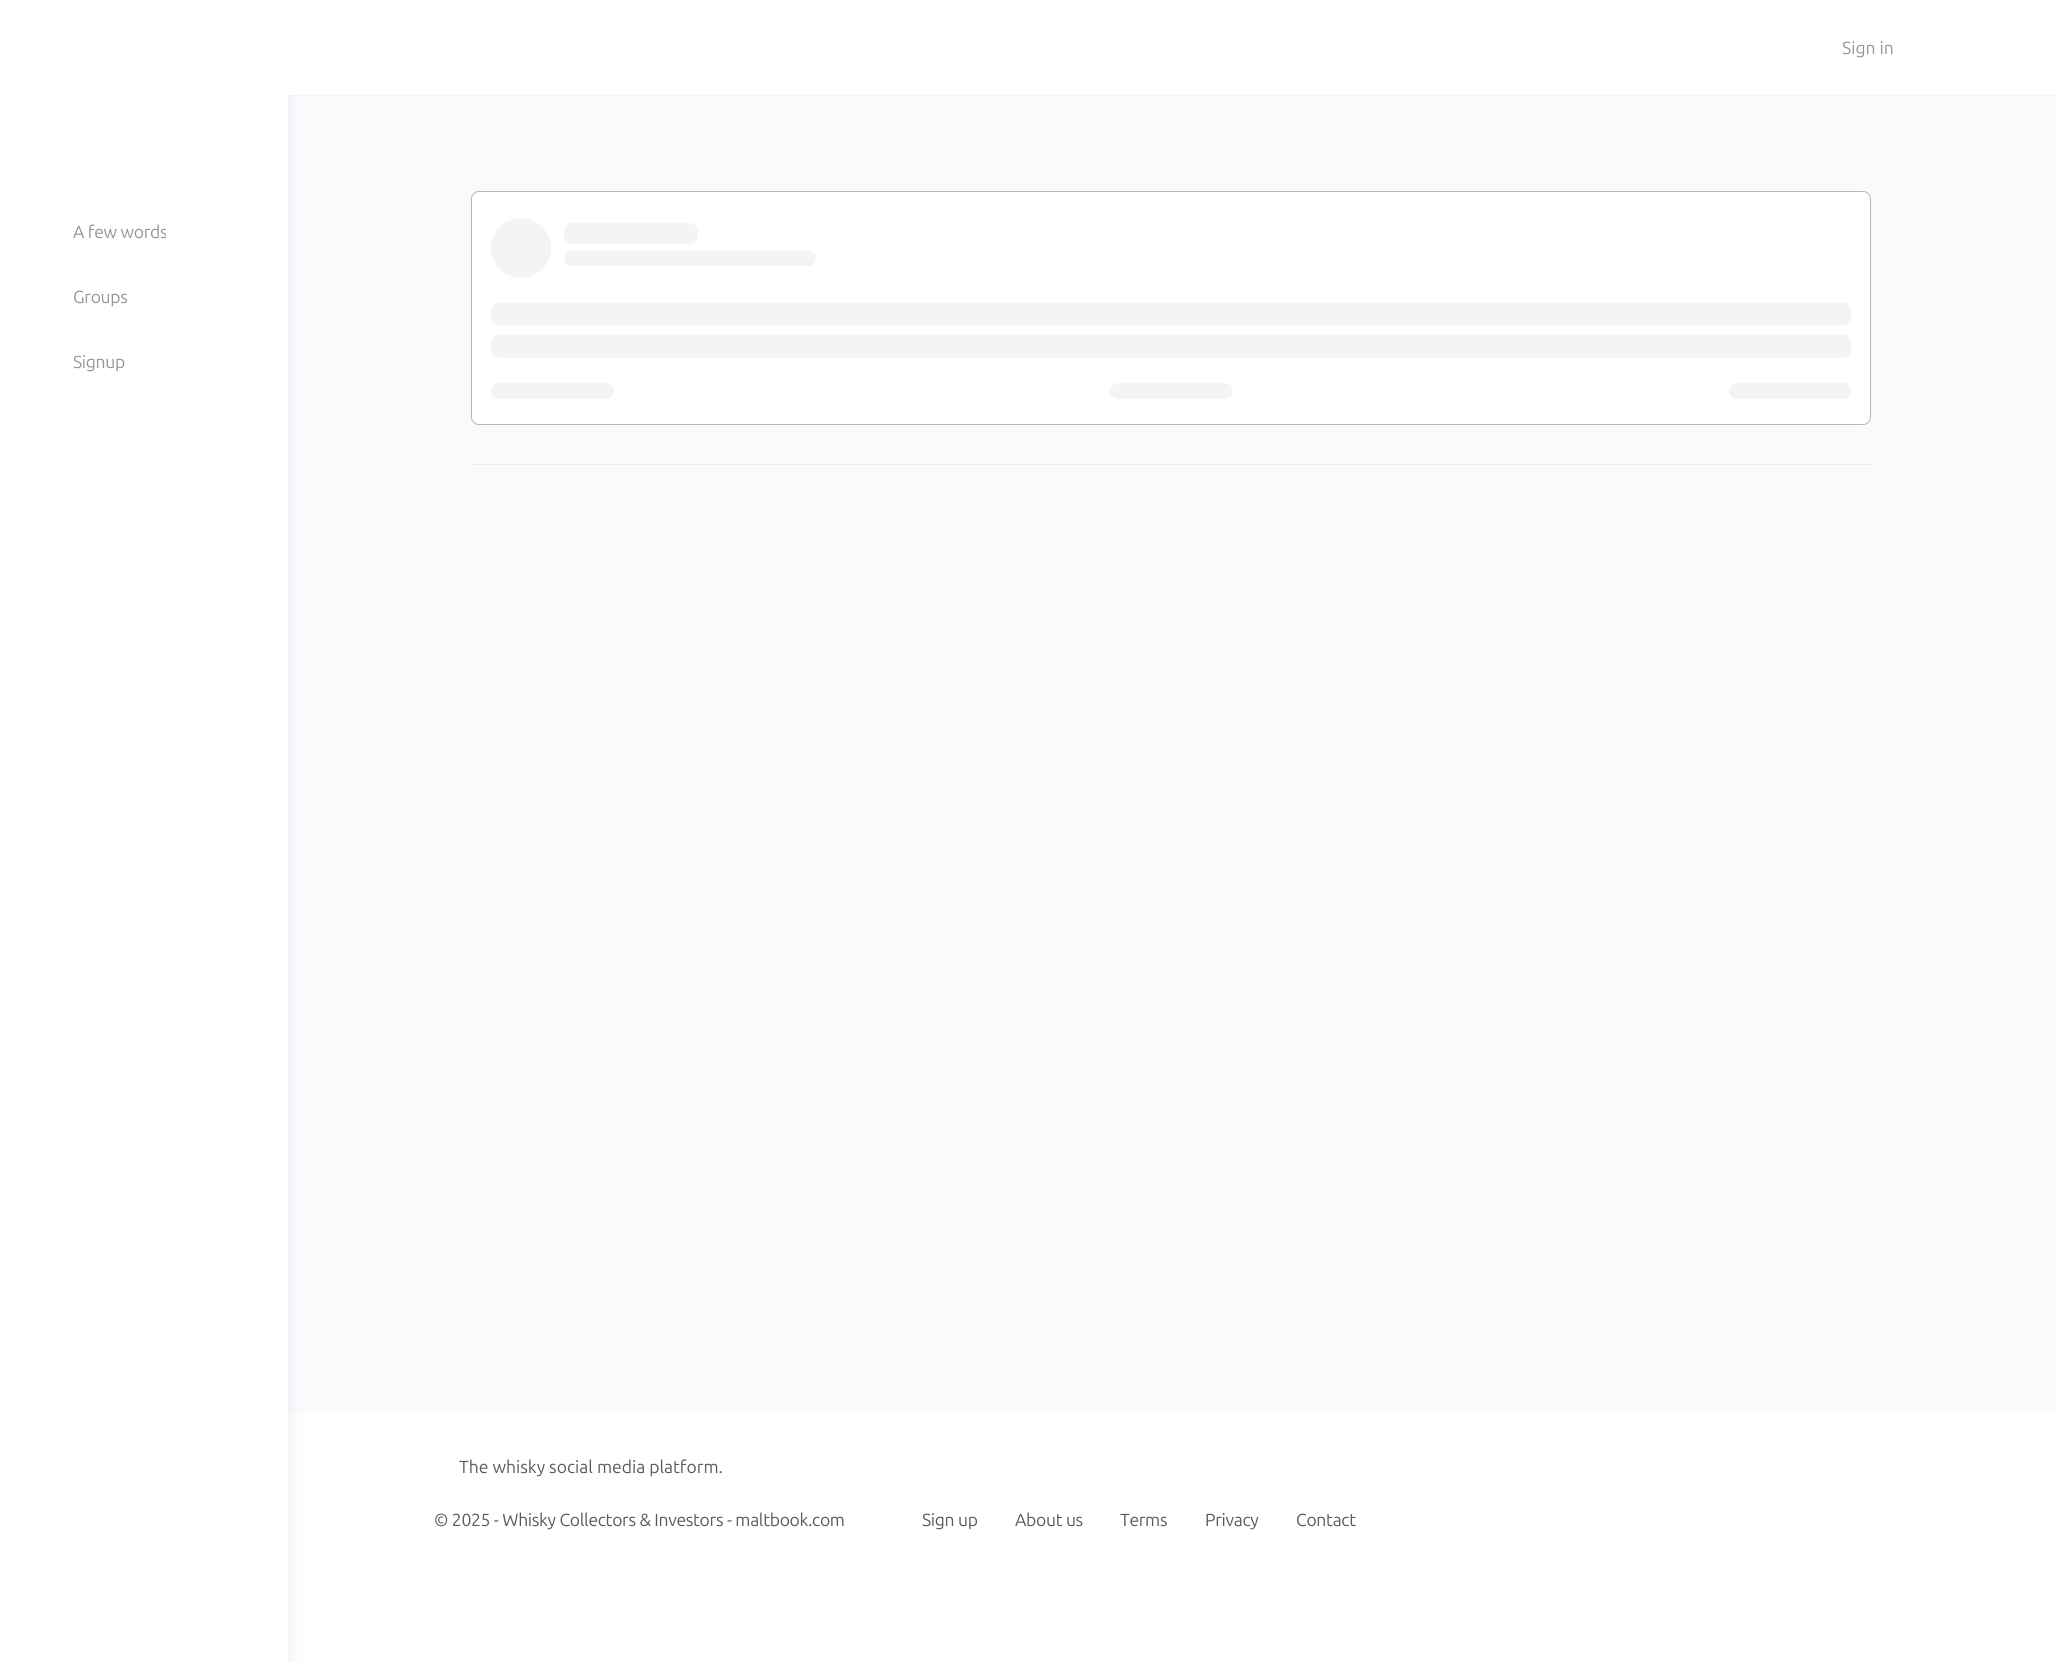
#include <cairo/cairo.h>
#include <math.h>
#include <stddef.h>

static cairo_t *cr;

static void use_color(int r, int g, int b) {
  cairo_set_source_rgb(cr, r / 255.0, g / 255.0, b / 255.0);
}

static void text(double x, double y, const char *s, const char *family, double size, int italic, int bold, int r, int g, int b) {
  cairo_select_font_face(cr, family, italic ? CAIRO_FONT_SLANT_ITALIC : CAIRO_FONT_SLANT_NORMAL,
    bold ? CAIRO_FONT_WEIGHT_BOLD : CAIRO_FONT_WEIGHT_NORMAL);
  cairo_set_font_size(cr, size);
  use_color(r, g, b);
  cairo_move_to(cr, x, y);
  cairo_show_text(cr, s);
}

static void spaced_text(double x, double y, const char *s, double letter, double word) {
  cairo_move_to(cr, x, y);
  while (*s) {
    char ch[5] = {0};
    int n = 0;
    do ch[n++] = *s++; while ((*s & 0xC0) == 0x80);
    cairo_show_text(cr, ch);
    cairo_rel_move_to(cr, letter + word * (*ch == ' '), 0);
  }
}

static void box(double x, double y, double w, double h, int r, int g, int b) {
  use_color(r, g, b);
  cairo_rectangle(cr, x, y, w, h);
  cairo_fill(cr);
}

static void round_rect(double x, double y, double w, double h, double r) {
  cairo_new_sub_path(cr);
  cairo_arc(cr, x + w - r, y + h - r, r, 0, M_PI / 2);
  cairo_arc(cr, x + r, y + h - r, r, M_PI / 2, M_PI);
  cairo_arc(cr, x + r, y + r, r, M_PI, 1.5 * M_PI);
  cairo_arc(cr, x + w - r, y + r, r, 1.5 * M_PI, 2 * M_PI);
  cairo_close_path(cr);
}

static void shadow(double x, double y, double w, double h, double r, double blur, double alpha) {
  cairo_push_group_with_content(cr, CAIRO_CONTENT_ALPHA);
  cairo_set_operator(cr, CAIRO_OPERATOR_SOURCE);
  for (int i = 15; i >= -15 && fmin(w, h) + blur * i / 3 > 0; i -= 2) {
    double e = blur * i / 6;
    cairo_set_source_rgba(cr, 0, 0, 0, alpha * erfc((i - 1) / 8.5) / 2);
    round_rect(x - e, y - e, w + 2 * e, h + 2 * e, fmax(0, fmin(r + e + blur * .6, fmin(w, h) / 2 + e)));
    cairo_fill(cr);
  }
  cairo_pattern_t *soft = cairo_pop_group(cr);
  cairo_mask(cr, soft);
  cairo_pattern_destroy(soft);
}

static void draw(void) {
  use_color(250, 251, 253);
  cairo_paint(cr);
  box(288, 1414, 1767, 248, 255, 255, 255);
  use_color(18, 43, 70);
  shadow(0, 4, 288, 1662, 0, 8, 0.1);
  box(0, 0, 288, 1662, 255, 255, 255);
  cairo_set_source_rgba(cr, 0.545, 0.553, 0.616, 0.05);
  cairo_rectangle(cr, 288, 95, 1767, 1);
  cairo_fill(cr);
  box(288, 0, 1767, 95, 255, 255, 255);
  box(434, 158, 1475, 357, 250, 250, 250);
  box(471, 464, 1400, 1, 234, 234, 234);
  use_color(255, 255, 255);
  round_rect(471.5, 191.5, 1399, 233, 7.5);
  cairo_fill_preserve(cr);
  use_color(183, 183, 183);
  cairo_set_line_width(cr, 1);
  cairo_stroke(cr);
  use_color(242, 244, 245);
  cairo_arc(cr, 521, 248, 30, 0, 2 * M_PI);
  cairo_fill(cr);
  round_rect(564, 223, 134, 21, 8);
  cairo_fill(cr);
  round_rect(564, 251, 252, 15, 7.5);
  cairo_fill(cr);
  round_rect(491, 303, 1360, 22, 8);
  cairo_fill(cr);
  round_rect(491, 335, 1360, 23, 8);
  cairo_fill(cr);
  round_rect(491, 383, 123, 16, 8);
  cairo_fill(cr);
  round_rect(1110, 383, 123, 16, 8);
  cairo_fill(cr);
  round_rect(1729, 383, 122, 16, 8);
  cairo_fill(cr);
  cairo_save(cr);
  cairo_rectangle(cr, 73, 223, 93, 20);
  cairo_clip(cr);
  cairo_select_font_face(cr, "Ubuntu", CAIRO_FONT_SLANT_NORMAL, CAIRO_FONT_WEIGHT_NORMAL);
  cairo_set_font_size(cr, 17.5);
  use_color(147, 149, 151);
  spaced_text(73, 238, "A few words", -0.3, 0);
  cairo_restore(cr);
  cairo_select_font_face(cr, "Ubuntu", CAIRO_FONT_SLANT_NORMAL, CAIRO_FONT_WEIGHT_NORMAL);
  cairo_set_font_size(cr, 17.5);
  use_color(147, 149, 151);
  spaced_text(73, 303, "Groups", -0.3, 0);
  spaced_text(73, 368, "Signup", -0.3, 0);
  text(1842, 54, "Sign in", "Ubuntu", 17.5, 0, 0, 147, 149, 151);
  text(459, 1473, "The whisky social media platform.", "Ubuntu", 17.5, 0, 0, 90, 90, 90);
  spaced_text(434, 1526, "© 2025 - Whisky Collectors & Investors - maltbook.com", -0.3, 0);
  spaced_text(922, 1526, "Sign up", -0.3, 0);
  spaced_text(1015, 1526, "About us", -0.3, 0);
  spaced_text(1120, 1526, "Terms", -0.3, 0);
  spaced_text(1205, 1526, "Privacy", -0.3, 0);
  spaced_text(1296, 1526, "Contact", -0.3, 0);
}

int main(void) {
  cairo_surface_t *surface = cairo_image_surface_create(CAIRO_FORMAT_RGB24, 2055, 1662);
  cr = cairo_create(surface);
  cairo_font_options_t *options = cairo_font_options_create();
  cairo_font_options_set_hint_metrics(options, CAIRO_HINT_METRICS_OFF);
  cairo_font_options_set_hint_style(options, CAIRO_HINT_STYLE_NONE);
  cairo_set_font_options(cr, options);
  cairo_set_miter_limit(cr, 4);
  draw();
  cairo_surface_write_to_png(surface, "out.png");
  cairo_font_options_destroy(options);
  cairo_destroy(cr);
  cairo_surface_destroy(surface);
  return 0;
}
